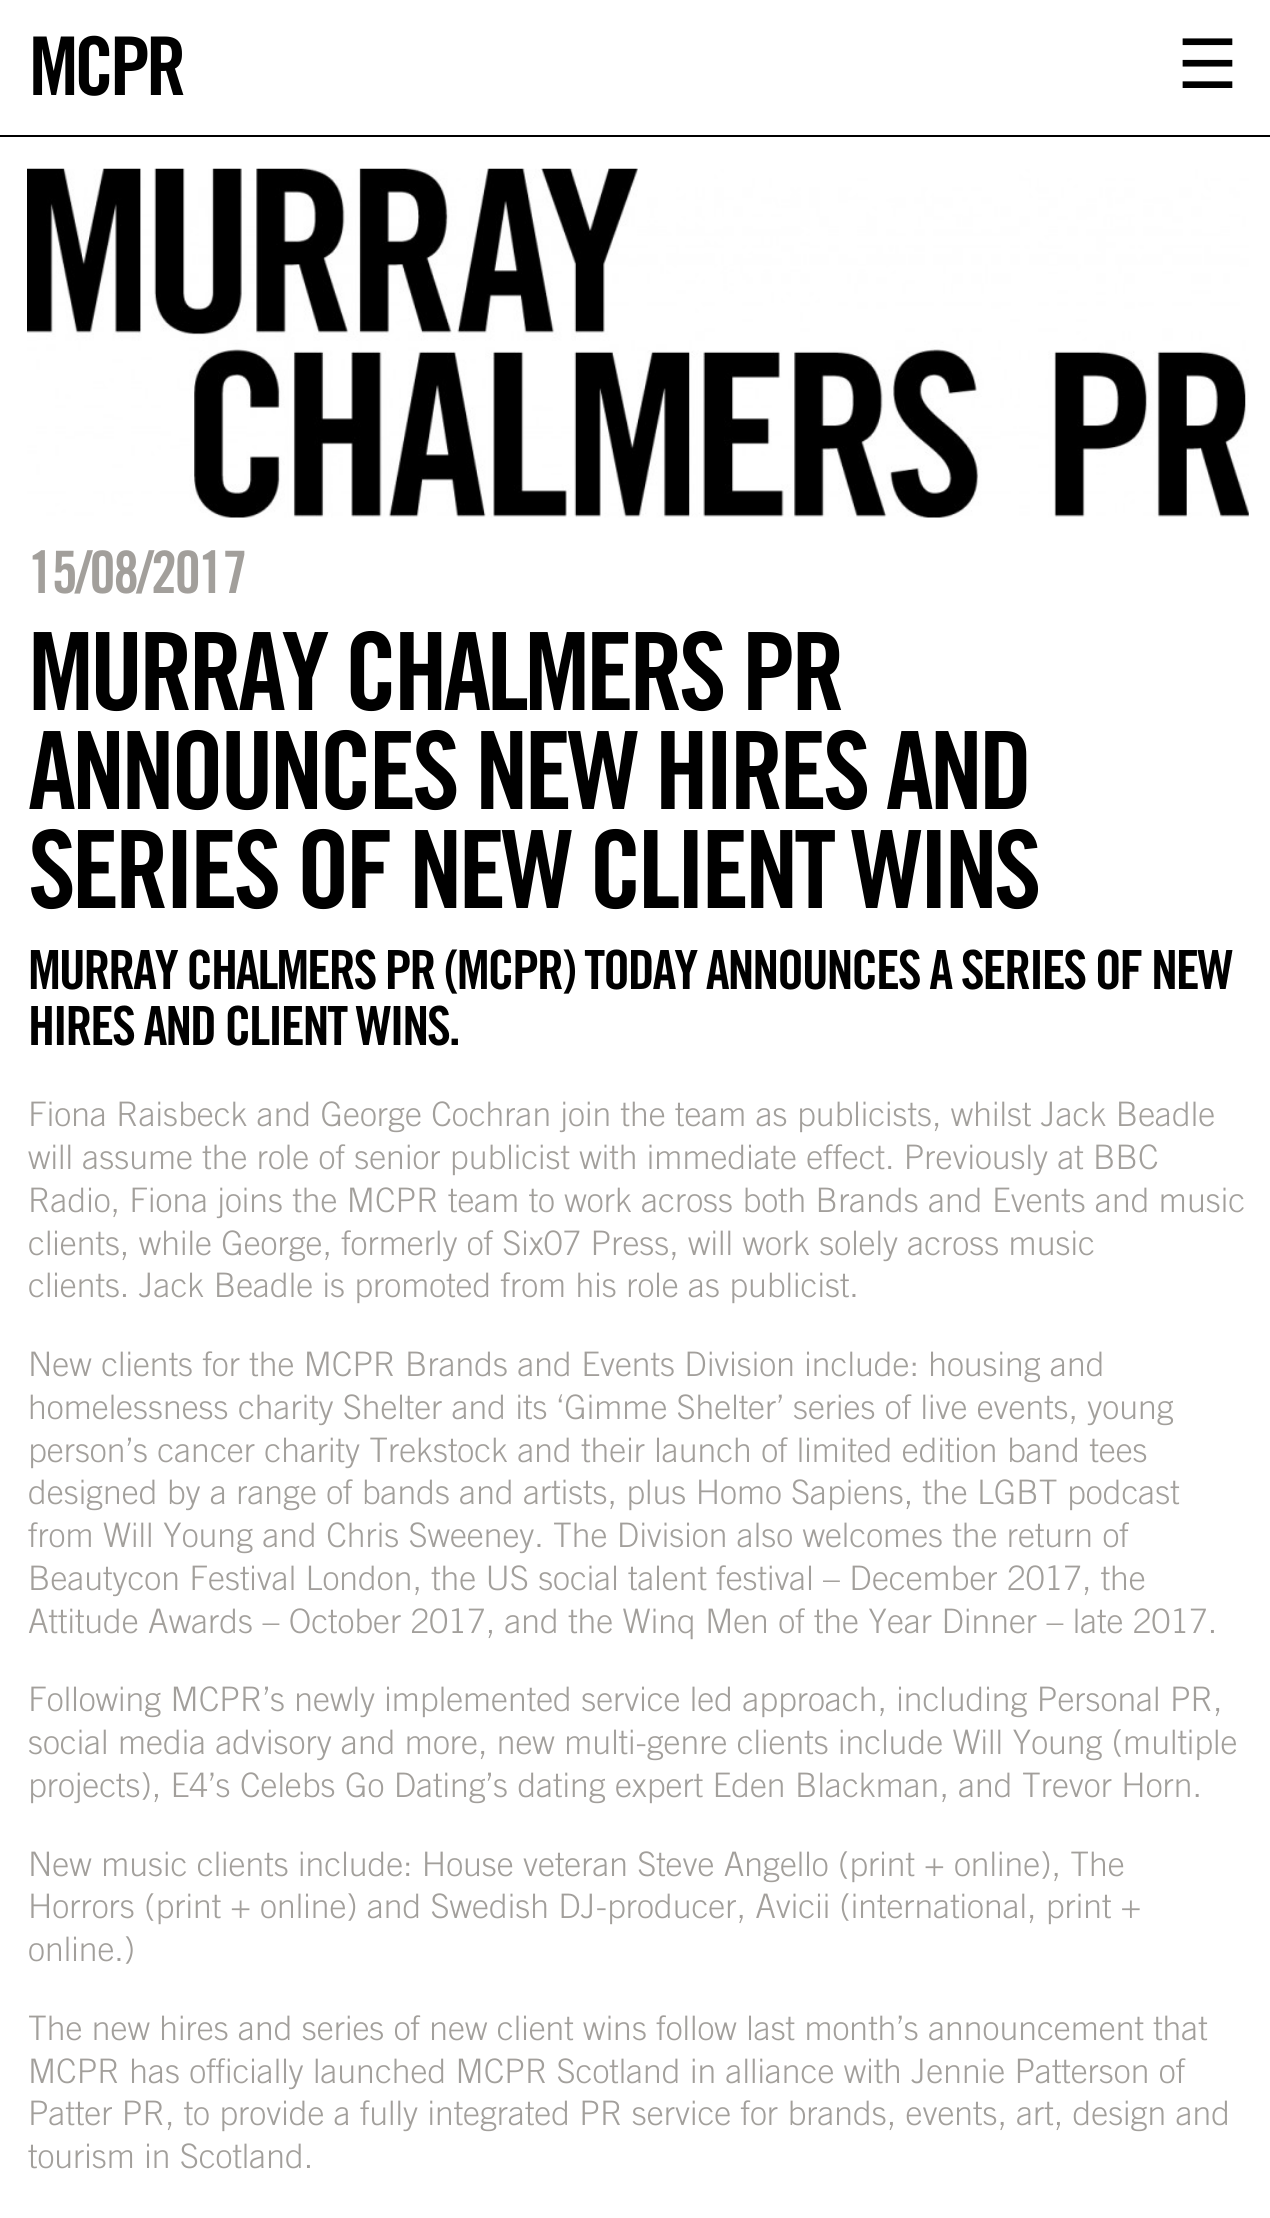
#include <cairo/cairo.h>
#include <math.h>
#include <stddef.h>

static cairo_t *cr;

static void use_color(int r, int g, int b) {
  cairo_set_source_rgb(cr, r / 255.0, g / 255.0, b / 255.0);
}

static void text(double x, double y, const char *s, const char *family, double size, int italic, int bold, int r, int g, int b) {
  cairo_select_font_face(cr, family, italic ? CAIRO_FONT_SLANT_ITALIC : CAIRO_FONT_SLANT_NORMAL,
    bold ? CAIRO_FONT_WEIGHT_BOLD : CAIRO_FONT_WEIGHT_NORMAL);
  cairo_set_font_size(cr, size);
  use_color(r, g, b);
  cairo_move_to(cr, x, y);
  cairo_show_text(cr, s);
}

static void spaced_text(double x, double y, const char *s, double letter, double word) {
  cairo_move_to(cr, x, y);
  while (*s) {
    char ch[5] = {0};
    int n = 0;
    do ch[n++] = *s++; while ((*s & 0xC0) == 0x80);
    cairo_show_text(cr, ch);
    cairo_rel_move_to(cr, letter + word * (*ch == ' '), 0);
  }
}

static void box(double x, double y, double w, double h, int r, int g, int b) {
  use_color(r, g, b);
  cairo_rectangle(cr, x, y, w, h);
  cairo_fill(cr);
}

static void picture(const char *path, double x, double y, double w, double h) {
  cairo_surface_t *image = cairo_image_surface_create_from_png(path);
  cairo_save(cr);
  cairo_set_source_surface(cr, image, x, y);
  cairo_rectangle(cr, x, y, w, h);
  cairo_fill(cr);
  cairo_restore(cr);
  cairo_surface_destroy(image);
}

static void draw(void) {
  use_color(255, 255, 255);
  cairo_paint(cr);
  box(0, 135, 1270, 2, 0, 0, 0);
  picture("img_01.png", 27, 168, 1222, 350);
  cairo_select_font_face(cr, "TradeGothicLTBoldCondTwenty", CAIRO_FONT_SLANT_NORMAL, CAIRO_FONT_WEIGHT_BOLD);
  cairo_set_font_size(cr, 81);
  spaced_text(29, 95, "MCPR", -4.5, 0);
  text(1177, 88, "☰", "DejaVu Sans", 68, 0, 0, 0, 0, 0);
  cairo_select_font_face(cr, "TradeGothicLTBoldCondTwenty", CAIRO_FONT_SLANT_NORMAL, CAIRO_FONT_WEIGHT_BOLD);
  cairo_set_font_size(cr, 58.5);
  use_color(162, 159, 155);
  spaced_text(28, 593, "15/08/2017", -2.25, 0);
  cairo_set_font_size(cr, 108);
  use_color(0, 0, 0);
  spaced_text(28, 710, "MURRAY CHALMERS PR", -4.5, 0);
  spaced_text(28, 809, "ANNOUNCES NEW HIRES AND", -4.5, 0);
  spaced_text(28, 908, "SERIES OF NEW CLIENT WINS", -4.5, 0);
  cairo_set_font_size(cr, 54);
  spaced_text(28, 989, "MURRAY CHALMERS PR (MCPR) TODAY ANNOUNCES A SERIES OF NEW", -2.25, 0);
  spaced_text(28, 1045, "HIRES AND CLIENT WINS.", -2.25, 0);
  text(28, 1126, "Fiona Raisbeck and George Cochran join the team as publicists, whilst Jack Beadle", "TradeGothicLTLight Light", 33.75, 0, 0, 162, 159, 155);
  text(28, 1169, "will assume the role of senior publicist with immediate effect. Previously at BBC", "TradeGothicLTLight Light", 33.75, 0, 0, 162, 159, 155);
  text(28, 1212, "Radio, Fiona joins the MCPR team to work across both Brands and Events and music", "TradeGothicLTLight Light", 33.75, 0, 0, 162, 159, 155);
  text(28, 1255, "clients, while George, formerly of Six07 Press, will work solely across music", "TradeGothicLTLight Light", 33.75, 0, 0, 162, 159, 155);
  text(28, 1297, "clients. Jack Beadle is promoted from his role as publicist.", "TradeGothicLTLight Light", 33.75, 0, 0, 162, 159, 155);
  text(28, 1376, "New clients for the MCPR Brands and Events Division include: housing and", "TradeGothicLTLight Light", 33.75, 0, 0, 162, 159, 155);
  text(28, 1419, "homelessness charity Shelter and its ‘Gimme Shelter’ series of live events, young", "TradeGothicLTLight Light", 33.75, 0, 0, 162, 159, 155);
  text(28, 1462, "person’s cancer charity Trekstock and their launch of limited edition band tees", "TradeGothicLTLight Light", 33.75, 0, 0, 162, 159, 155);
  text(28, 1504, "designed by a range of bands and artists, plus Homo Sapiens, the LGBT podcast", "TradeGothicLTLight Light", 33.75, 0, 0, 162, 159, 155);
  text(28, 1547, "from Will Young and Chris Sweeney. The Division also welcomes the return of", "TradeGothicLTLight Light", 33.75, 0, 0, 162, 159, 155);
  text(28, 1590, "Beautycon Festival London, the US social talent festival – December 2017, the", "TradeGothicLTLight Light", 33.75, 0, 0, 162, 159, 155);
  text(28, 1633, "Attitude Awards – October 2017, and the Winq Men of the Year Dinner – late 2017.", "TradeGothicLTLight Light", 33.75, 0, 0, 162, 159, 155);
  text(28, 1711, "Following MCPR’s newly implemented service led approach, including Personal PR,", "TradeGothicLTLight Light", 33.75, 0, 0, 162, 159, 155);
  text(28, 1754, "social media advisory and more, new multi-genre clients include Will Young (multiple", "TradeGothicLTLight Light", 33.75, 0, 0, 162, 159, 155);
  text(28, 1797, "projects), E4’s Celebs Go Dating’s dating expert Eden Blackman, and Trevor Horn.", "TradeGothicLTLight Light", 33.75, 0, 0, 162, 159, 155);
  text(28, 1876, "New music clients include: House veteran Steve Angello (print + online), The", "TradeGothicLTLight Light", 33.75, 0, 0, 162, 159, 155);
  text(28, 1918, "Horrors (print + online) and Swedish DJ-producer, Avicii (international, print +", "TradeGothicLTLight Light", 33.75, 0, 0, 162, 159, 155);
  text(28, 1961, "online.)", "TradeGothicLTLight Light", 33.75, 0, 0, 162, 159, 155);
  text(28, 2040, "The new hires and series of new client wins follow last month’s announcement that", "TradeGothicLTLight Light", 33.75, 0, 0, 162, 159, 155);
  text(28, 2083, "MCPR has officially launched MCPR Scotland in alliance with Jennie Patterson of", "TradeGothicLTLight Light", 33.75, 0, 0, 162, 159, 155);
  text(28, 2125, "Patter PR, to provide a fully integrated PR service for brands, events, art, design and", "TradeGothicLTLight Light", 33.75, 0, 0, 162, 159, 155);
  text(28, 2168, "tourism in Scotland.", "TradeGothicLTLight Light", 33.75, 0, 0, 162, 159, 155);
}

int main(void) {
  cairo_surface_t *surface = cairo_image_surface_create(CAIRO_FORMAT_RGB24, 1270, 2218);
  cr = cairo_create(surface);
  cairo_font_options_t *options = cairo_font_options_create();
  cairo_font_options_set_hint_metrics(options, CAIRO_HINT_METRICS_OFF);
  cairo_font_options_set_hint_style(options, CAIRO_HINT_STYLE_NONE);
  cairo_set_font_options(cr, options);
  cairo_set_miter_limit(cr, 4);
  draw();
  cairo_surface_write_to_png(surface, "out.png");
  cairo_font_options_destroy(options);
  cairo_destroy(cr);
  cairo_surface_destroy(surface);
  return 0;
}
